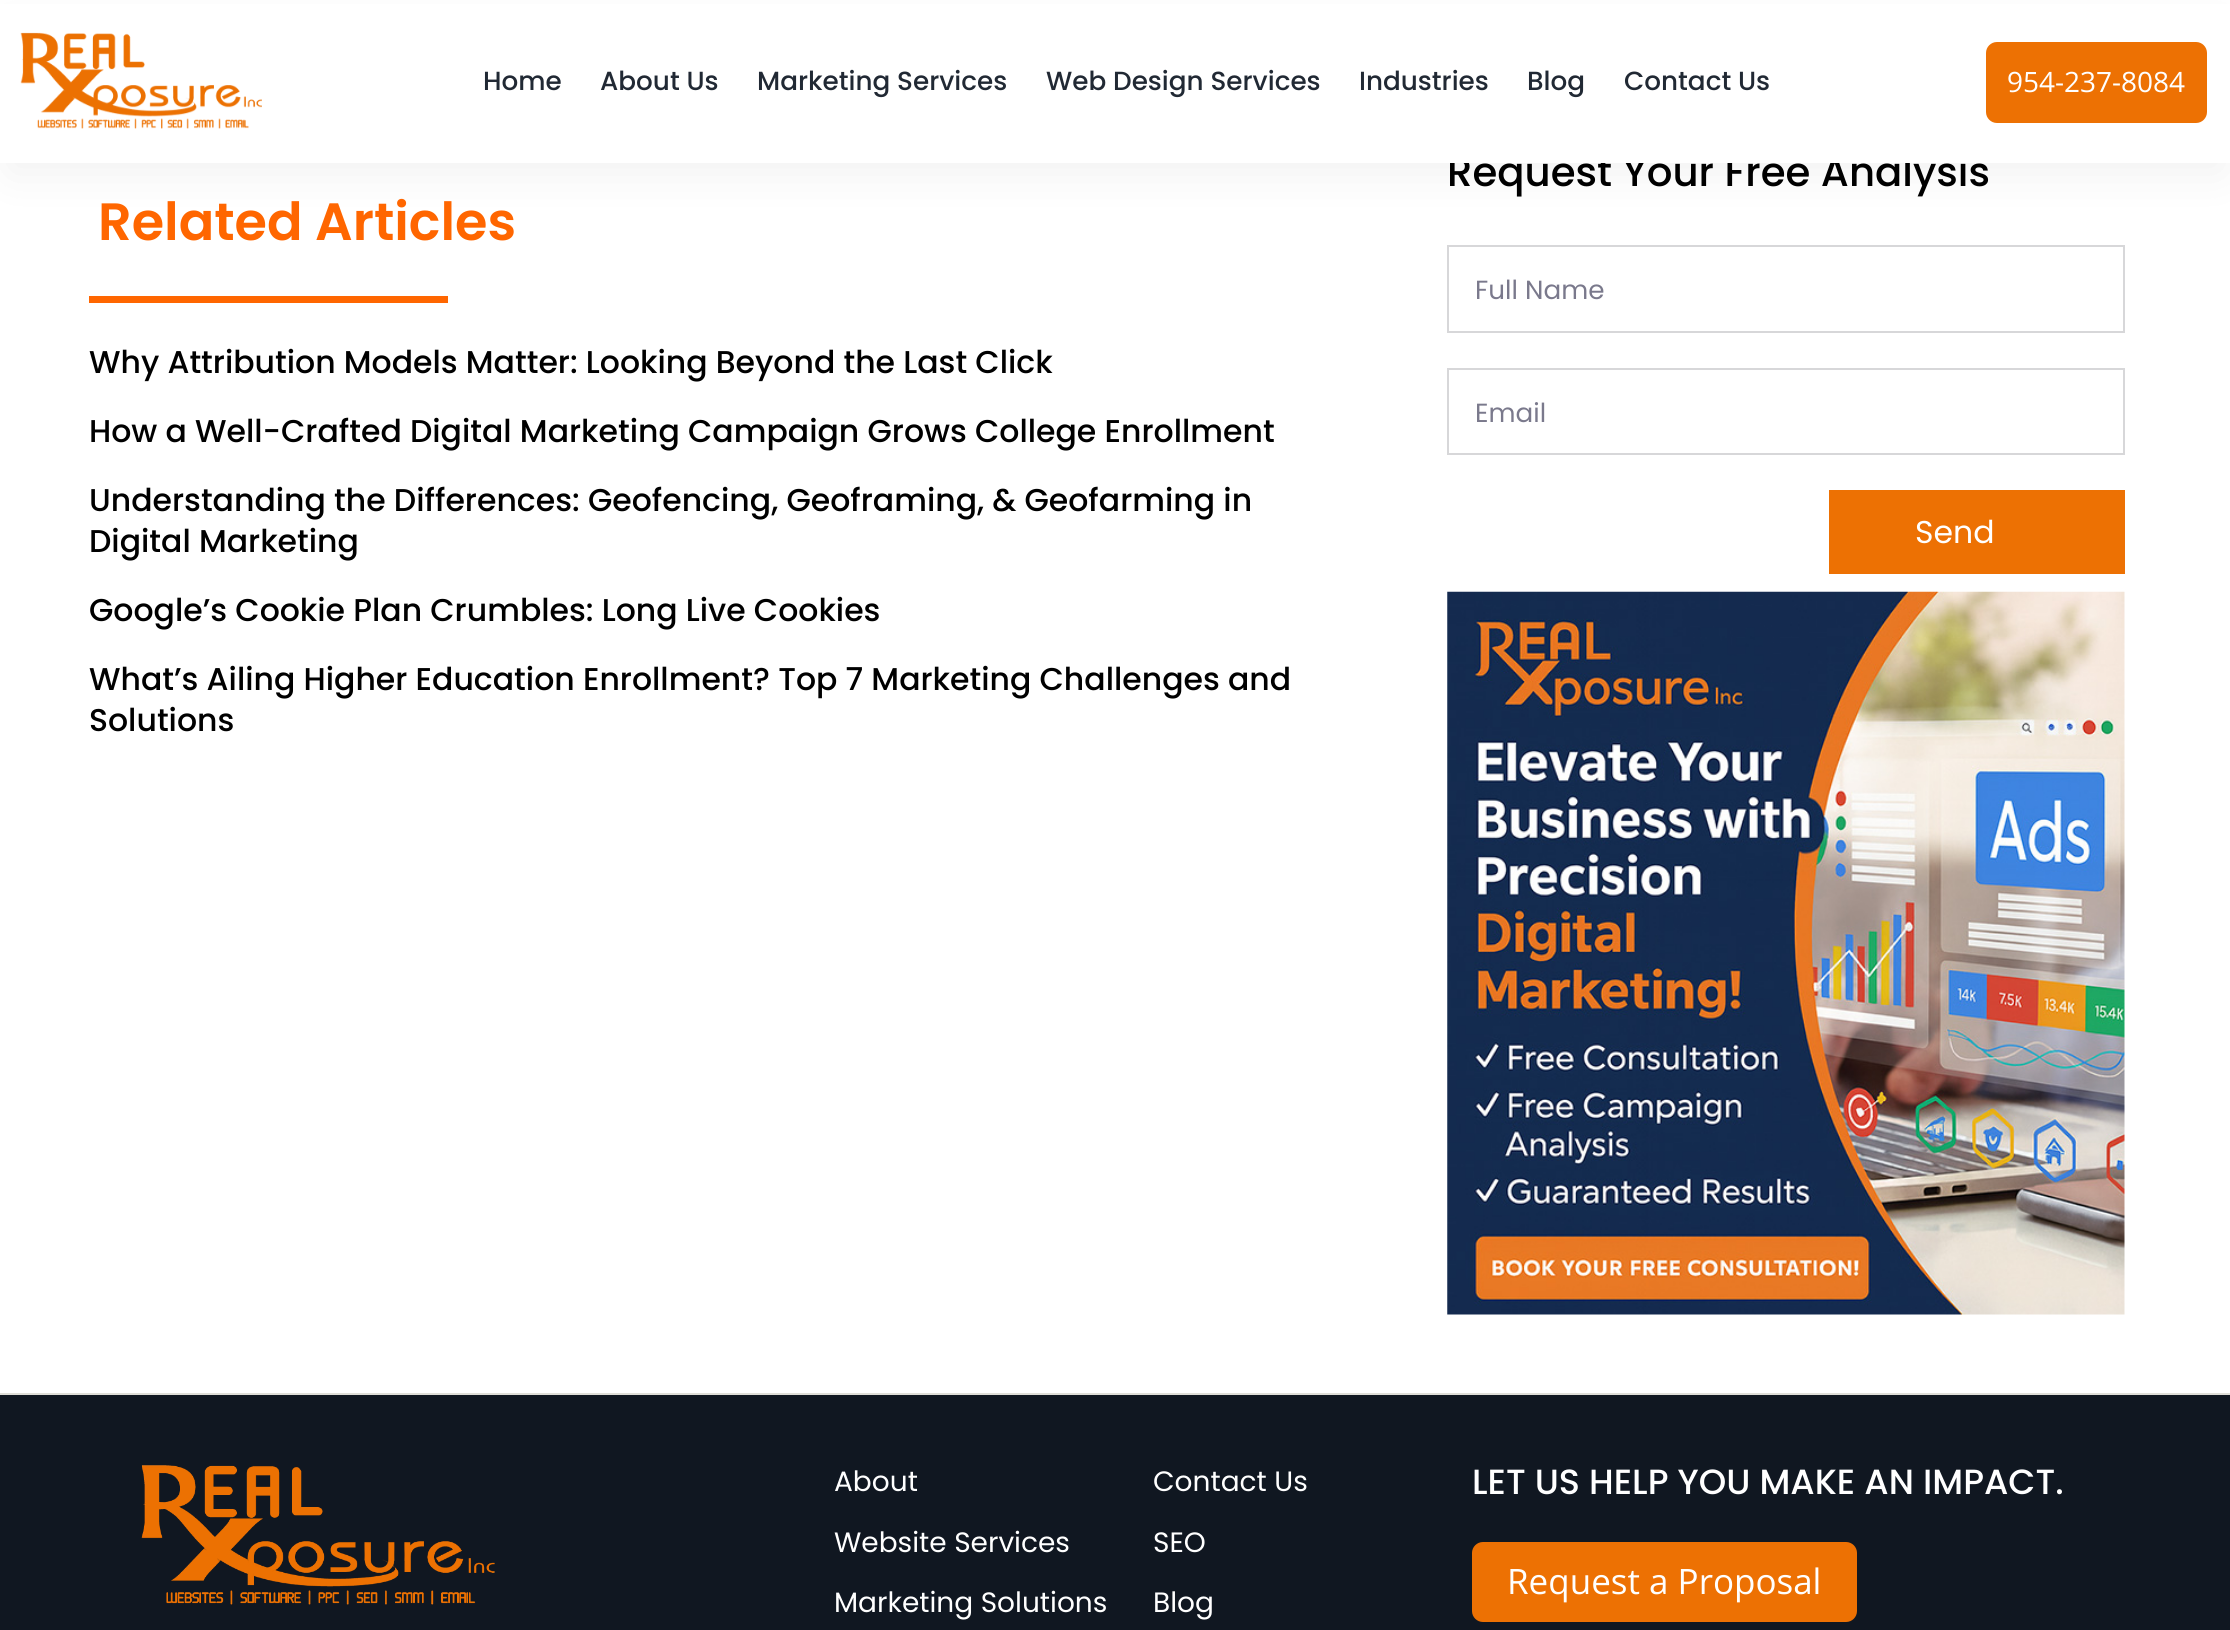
#include <cairo/cairo.h>
#include <math.h>
#include <stddef.h>

static cairo_t *cr;

static void use_color(int r, int g, int b) {
  cairo_set_source_rgb(cr, r / 255.0, g / 255.0, b / 255.0);
}

static void text(double x, double y, const char *s, const char *family, double size, int italic, int bold, int r, int g, int b) {
  cairo_select_font_face(cr, family, italic ? CAIRO_FONT_SLANT_ITALIC : CAIRO_FONT_SLANT_NORMAL,
    bold ? CAIRO_FONT_WEIGHT_BOLD : CAIRO_FONT_WEIGHT_NORMAL);
  cairo_set_font_size(cr, size);
  use_color(r, g, b);
  cairo_move_to(cr, x, y);
  cairo_show_text(cr, s);
}

static void box(double x, double y, double w, double h, int r, int g, int b) {
  use_color(r, g, b);
  cairo_rectangle(cr, x, y, w, h);
  cairo_fill(cr);
}

static void round_rect(double x, double y, double w, double h, double r) {
  cairo_new_sub_path(cr);
  cairo_arc(cr, x + w - r, y + h - r, r, 0, M_PI / 2);
  cairo_arc(cr, x + r, y + h - r, r, M_PI / 2, M_PI);
  cairo_arc(cr, x + r, y + r, r, M_PI, 1.5 * M_PI);
  cairo_arc(cr, x + w - r, y + r, r, 1.5 * M_PI, 2 * M_PI);
  cairo_close_path(cr);
}

static void shadow(double x, double y, double w, double h, double r, double blur, double alpha) {
  cairo_push_group_with_content(cr, CAIRO_CONTENT_ALPHA);
  cairo_set_operator(cr, CAIRO_OPERATOR_SOURCE);
  for (int i = 15; i >= -15 && fmin(w, h) + blur * i / 3 > 0; i -= 2) {
    double e = blur * i / 6;
    cairo_set_source_rgba(cr, 0, 0, 0, alpha * erfc((i - 1) / 8.5) / 2);
    round_rect(x - e, y - e, w + 2 * e, h + 2 * e, fmax(0, fmin(r + e + blur * .6, fmin(w, h) / 2 + e)));
    cairo_fill(cr);
  }
  cairo_pattern_t *soft = cairo_pop_group(cr);
  cairo_mask(cr, soft);
  cairo_pattern_destroy(soft);
}

static void picture(const char *path, double x, double y, double w, double h) {
  cairo_surface_t *image = cairo_image_surface_create_from_png(path);
  cairo_save(cr);
  cairo_set_source_surface(cr, image, x, y);
  cairo_rectangle(cr, x, y, w, h);
  cairo_fill(cr);
  cairo_restore(cr);
  cairo_surface_destroy(image);
}

static void draw(void) {
  use_color(255, 255, 255);
  cairo_paint(cr);
  use_color(0, 0, 0);
  shadow(9, 26, 2214, 146, 0, 23, 0.06);
  box(89, 296, 359, 7, 255, 102, 0);
  cairo_rectangle(cr, 1448, 246, 676, 86);
  use_color(215, 215, 217);
  cairo_stroke(cr);
  cairo_rectangle(cr, 1448, 369, 676, 85);
  cairo_stroke(cr);
  box(1829, 490, 296, 84, 237, 113, 3);
  picture("img_02.png", 1447, 591, 678, 724);
  box(0, 1395, 2230, 235, 16, 23, 33);
  box(0, 1393, 2230, 2, 223, 222, 216);
  picture("img_03.png", 141, 1465, 354, 140);
  use_color(237, 113, 3);
  round_rect(1472, 1542, 385, 80, 11);
  cairo_fill(cr);
  text(98, 240, "Related Articles", "Poppins SemiBold", 52.5, 0, 0, 255, 102, 0);
  text(89, 373, "Why Attribution Models Matter: Looking Beyond the Last Click", "Poppins Medium", 31.5, 0, 0, 0, 0, 0);
  text(89, 442, "How a Well-Crafted Digital Marketing Campaign Grows College Enrollment", "Poppins Medium", 31.5, 0, 0, 0, 0, 0);
  text(89, 511, "Understanding the Differences: Geofencing, Geoframing, & Geofarming in", "Poppins Medium", 31.5, 0, 0, 0, 0, 0);
  text(89, 552, "Digital Marketing", "Poppins Medium", 31.5, 0, 0, 0, 0, 0);
  text(89, 621, "Google’s Cookie Plan Crumbles: Long Live Cookies", "Poppins Medium", 31.5, 0, 0, 0, 0, 0);
  text(89, 690, "What’s Ailing Higher Education Enrollment? Top 7 Marketing Challenges and", "Poppins Medium", 31.5, 0, 0, 0, 0, 0);
  text(89, 731, "Solutions", "Poppins Medium", 31.5, 0, 0, 0, 0, 0);
  text(1447, 186, "Request Your Free Analysis", "Poppins Medium", 40.25, 0, 0, 0, 0, 0);
  box(0, 4, 2230, 159, 255, 255, 255);
  text(1624, 90, "Contact Us", "Poppins Medium", 26.25, 0, 0, 33, 41, 52);
  text(1527, 90, "Blog", "Poppins Medium", 26.25, 0, 0, 33, 41, 52);
  text(1359, 90, "Industries", "Poppins Medium", 26.25, 0, 0, 33, 41, 52);
  text(1046, 90, "Web Design Services", "Poppins Medium", 26.25, 0, 0, 33, 41, 52);
  text(757, 90, "Marketing Services", "Poppins Medium", 26.25, 0, 0, 33, 41, 52);
  text(600, 90, "About Us", "Poppins Medium", 26.25, 0, 0, 33, 41, 52);
  text(483, 90, "Home", "Poppins Medium", 26.25, 0, 0, 33, 41, 52);
  use_color(237, 113, 3);
  round_rect(1986, 42, 221, 81, 11);
  cairo_fill(cr);
  text(2007, 92, "954-237-8084", "Open Sans", 28, 0, 0, 255, 255, 255);
  picture("img_01.png", 20, 32, 242, 97);
  text(1475, 299, "Full Name", "Poppins", 26.25, 0, 0, 122, 121, 140);
  text(1475, 422, "Email", "Poppins", 26.25, 0, 0, 122, 121, 140);
  text(1915, 543, "Send", "Poppins", 31.5, 0, 0, 255, 255, 255);
  text(834, 1491, "About", "Poppins", 28, 0, 0, 255, 255, 255);
  text(834, 1552, "Website Services", "Poppins", 28, 0, 0, 255, 255, 255);
  text(834, 1612, "Marketing Solutions", "Poppins", 28, 0, 0, 255, 255, 255);
  text(1153, 1491, "Contact Us", "Poppins", 28, 0, 0, 255, 255, 255);
  text(1153, 1552, "SEO", "Poppins", 28, 0, 0, 255, 255, 255);
  text(1153, 1612, "Blog", "Poppins", 28, 0, 0, 255, 255, 255);
  text(1472, 1494, "LET US HELP YOU MAKE AN IMPACT.", "Poppins Medium", 35, 0, 0, 255, 255, 255);
  text(1507, 1594, "Request a Proposal", "Open Sans", 35, 0, 0, 255, 255, 255);
}

int main(void) {
  cairo_surface_t *surface = cairo_image_surface_create(CAIRO_FORMAT_RGB24, 2230, 1630);
  cr = cairo_create(surface);
  cairo_font_options_t *options = cairo_font_options_create();
  cairo_font_options_set_hint_metrics(options, CAIRO_HINT_METRICS_OFF);
  cairo_font_options_set_hint_style(options, CAIRO_HINT_STYLE_NONE);
  cairo_set_font_options(cr, options);
  cairo_set_miter_limit(cr, 4);
  draw();
  cairo_surface_write_to_png(surface, "out.png");
  cairo_font_options_destroy(options);
  cairo_destroy(cr);
  cairo_surface_destroy(surface);
  return 0;
}
